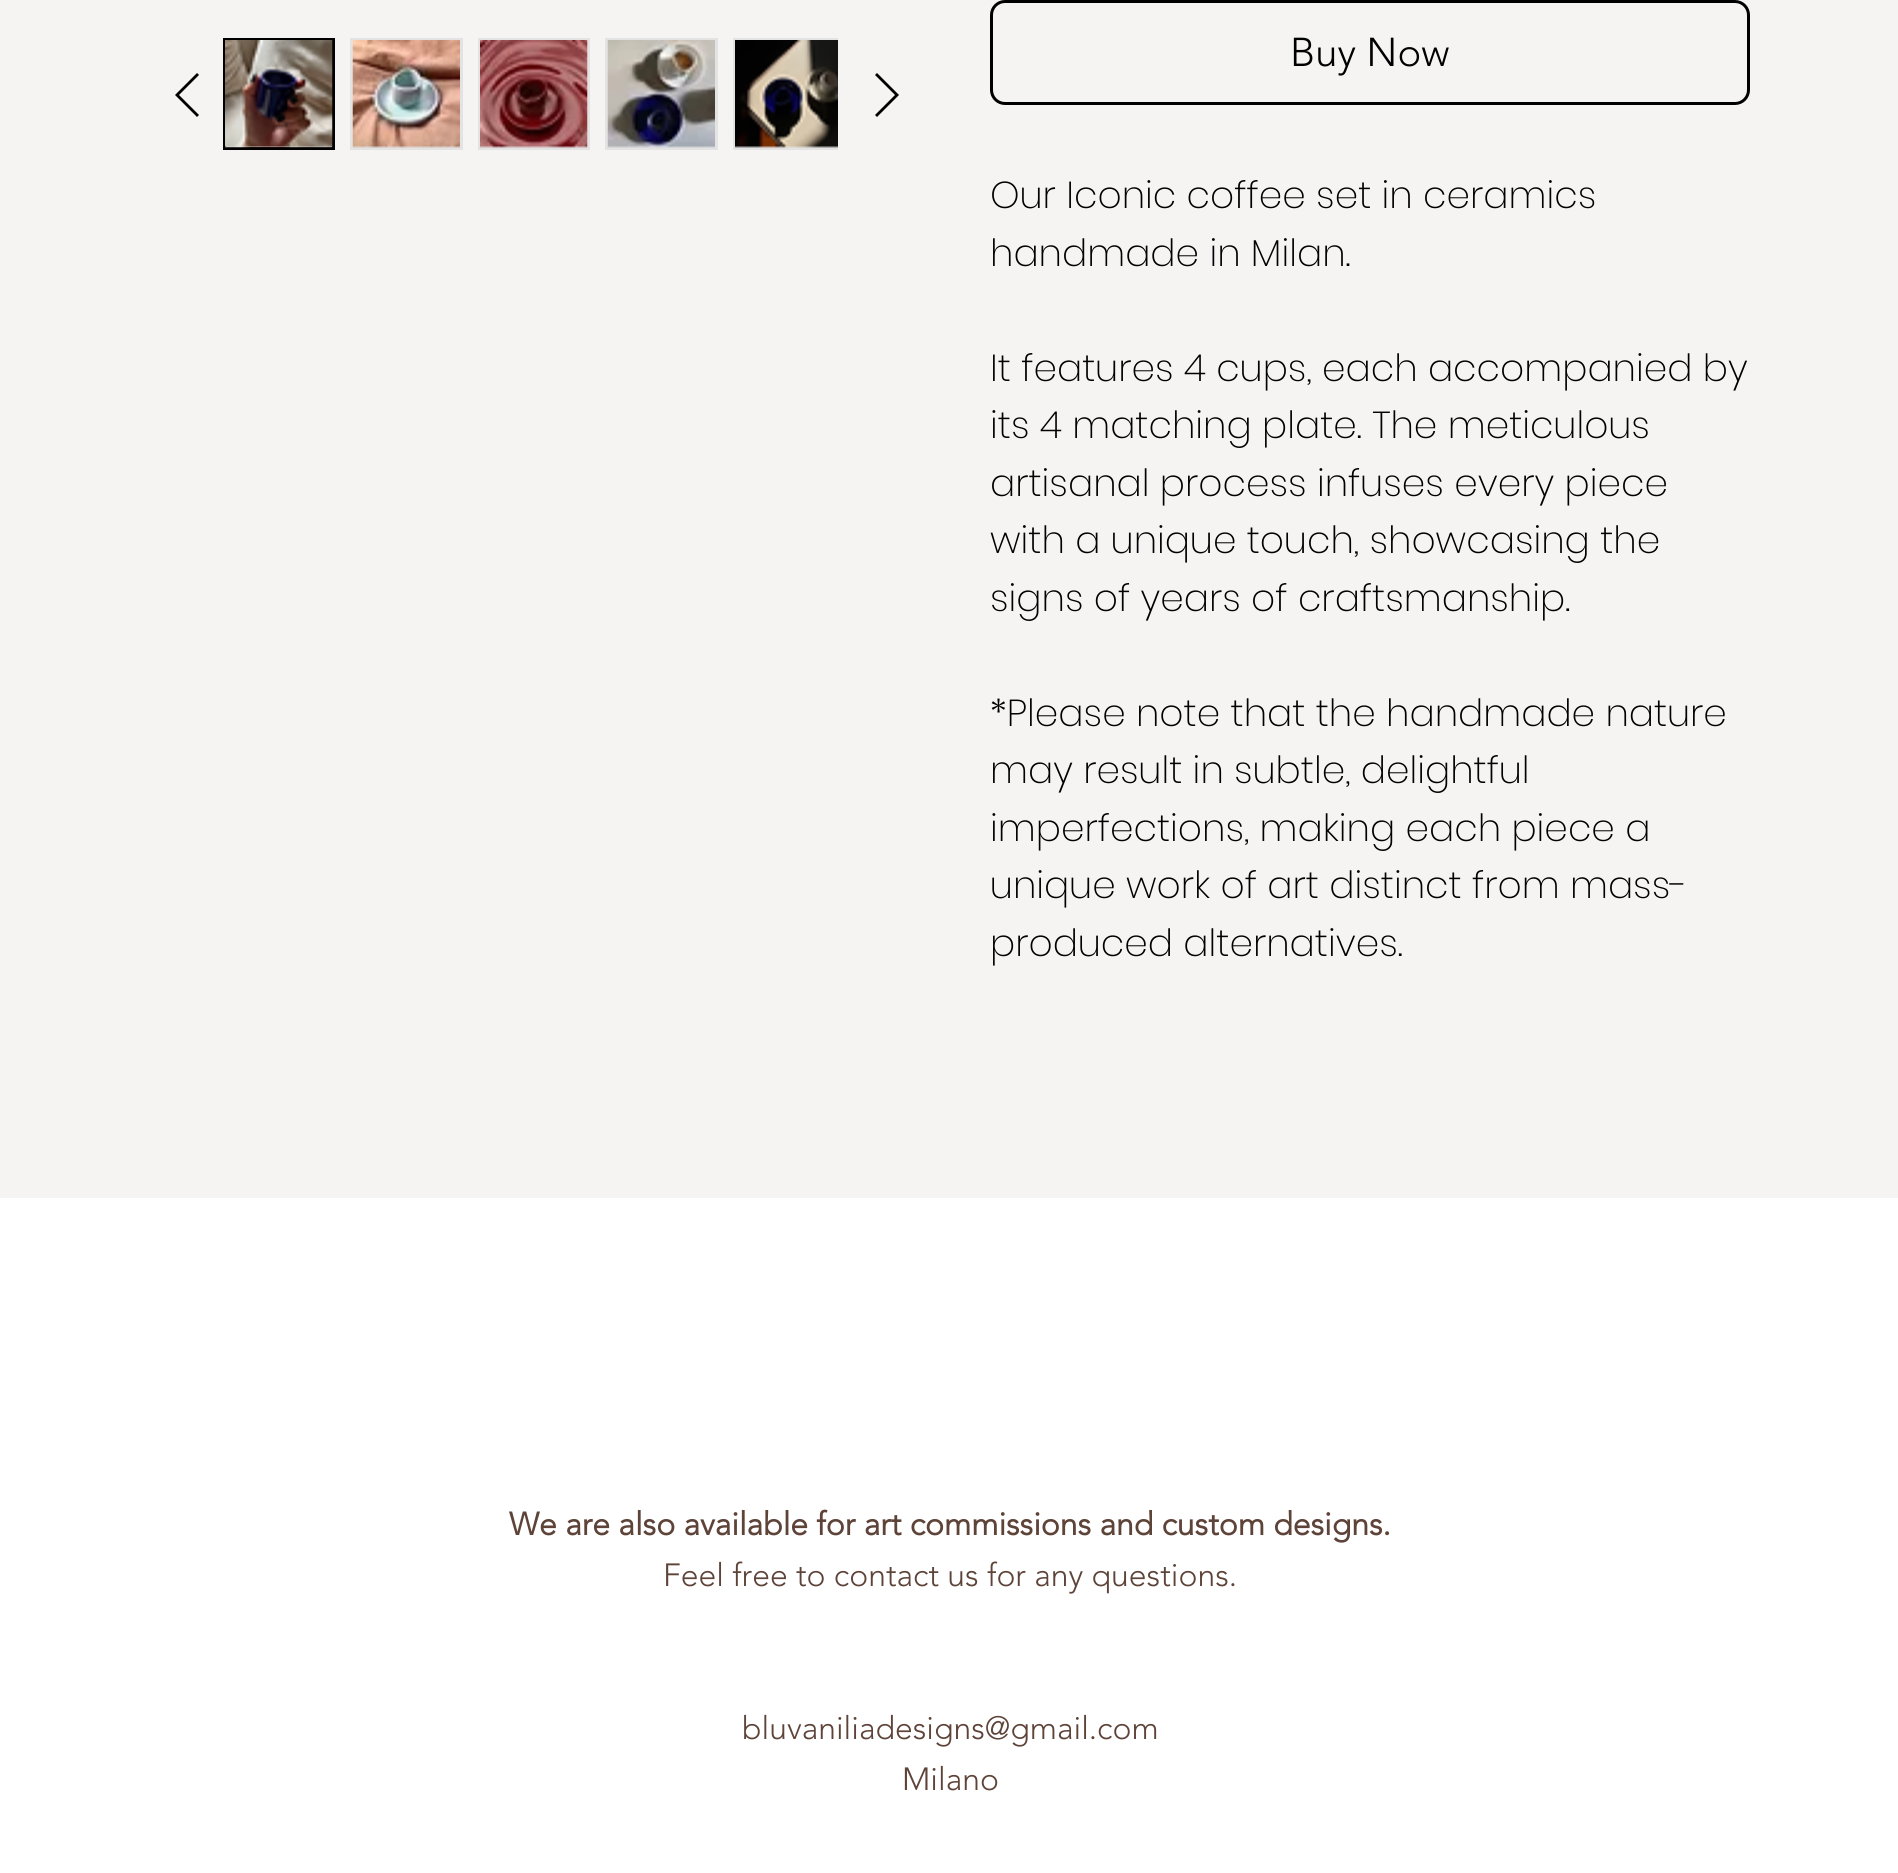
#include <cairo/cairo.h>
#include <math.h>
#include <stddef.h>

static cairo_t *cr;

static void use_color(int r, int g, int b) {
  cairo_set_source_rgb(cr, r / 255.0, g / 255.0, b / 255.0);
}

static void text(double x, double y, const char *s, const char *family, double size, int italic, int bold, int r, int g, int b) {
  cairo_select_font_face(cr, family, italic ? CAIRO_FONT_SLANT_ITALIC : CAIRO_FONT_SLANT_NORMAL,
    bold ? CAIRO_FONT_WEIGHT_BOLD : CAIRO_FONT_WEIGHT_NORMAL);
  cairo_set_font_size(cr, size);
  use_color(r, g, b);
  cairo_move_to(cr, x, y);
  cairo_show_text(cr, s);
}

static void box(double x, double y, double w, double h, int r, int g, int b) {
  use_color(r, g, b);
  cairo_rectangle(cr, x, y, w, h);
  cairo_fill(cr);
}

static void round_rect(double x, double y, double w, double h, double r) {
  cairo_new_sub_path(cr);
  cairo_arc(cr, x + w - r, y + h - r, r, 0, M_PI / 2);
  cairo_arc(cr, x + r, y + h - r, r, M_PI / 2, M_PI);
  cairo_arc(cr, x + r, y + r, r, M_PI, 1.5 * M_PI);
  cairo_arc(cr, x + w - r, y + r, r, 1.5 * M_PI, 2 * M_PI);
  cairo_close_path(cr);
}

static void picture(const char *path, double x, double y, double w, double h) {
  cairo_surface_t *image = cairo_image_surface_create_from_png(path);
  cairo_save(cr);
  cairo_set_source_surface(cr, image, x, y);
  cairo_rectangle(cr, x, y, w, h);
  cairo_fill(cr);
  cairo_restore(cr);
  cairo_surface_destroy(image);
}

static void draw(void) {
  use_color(255, 255, 255);
  cairo_paint(cr);
  box(0, 0, 1898, 1198, 245, 244, 243);
  use_color(0, 0, 0);
  cairo_set_fill_rule(cr, CAIRO_FILL_RULE_EVEN_ODD);
  cairo_new_path(cr);
  cairo_move_to(cr, 197, 73);
  cairo_line_to(cr, 199, 75);
  cairo_line_to(cr, 179, 95);
  cairo_line_to(cr, 199, 115);
  cairo_line_to(cr, 197, 117);
  cairo_line_to(cr, 175, 95);
  cairo_close_path(cr);
  cairo_fill(cr);
  use_color(227, 227, 227);
  cairo_rectangle(cr, 224.5, 39.5, 109, 109);
  cairo_fill_preserve(cr);
  use_color(0, 0, 0);
  cairo_set_line_width(cr, 3);
  cairo_stroke(cr);
  picture("img_01.png", 225, 40, 108, 108);
  box(350, 38, 113, 112, 227, 227, 227);
  picture("img_02.png", 352, 40, 108, 108);
  box(478, 38, 112, 112, 227, 227, 227);
  picture("img_03.png", 480, 40, 108, 108);
  box(605, 38, 113, 112, 227, 227, 227);
  picture("img_04.png", 607, 40, 108, 108);
  box(733, 38, 105, 112, 227, 227, 227);
  picture("img_05.png", 735, 40, 103, 108);
  use_color(0, 0, 0);
  cairo_new_path(cr);
  cairo_move_to(cr, 877, 73);
  cairo_line_to(cr, 899, 95);
  cairo_line_to(cr, 877, 117);
  cairo_line_to(cr, 875, 115);
  cairo_line_to(cr, 895, 95);
  cairo_line_to(cr, 875, 75);
  cairo_close_path(cr);
  cairo_fill(cr);
  round_rect(991.5, 1.5, 757, 102, 13.5);
  cairo_stroke(cr);
  text(1290, 66, "Buy Now", "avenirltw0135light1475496 Light", 40, 0, 0, 0, 0, 0);
  text(990, 208, "Our Iconic coffee set in ceramics", "Poppins ExtraLight", 37.5, 0, 0, 0, 0, 0);
  text(990, 266, "handmade in Milan.", "Poppins ExtraLight", 37.5, 0, 0, 0, 0, 0);
  text(990, 381, "It features 4 cups, each accompanied by", "Poppins ExtraLight", 37.5, 0, 0, 0, 0, 0);
  text(990, 438, "its 4 matching plate. The meticulous", "Poppins ExtraLight", 37.5, 0, 0, 0, 0, 0);
  text(990, 496, "artisanal process infuses every piece", "Poppins ExtraLight", 37.5, 0, 0, 0, 0, 0);
  text(990, 553, "with a unique touch, showcasing the", "Poppins ExtraLight", 37.5, 0, 0, 0, 0, 0);
  text(990, 611, "signs of years of craftsmanship.", "Poppins ExtraLight", 37.5, 0, 0, 0, 0, 0);
  text(990, 726, "*Please note that the handmade nature", "Poppins ExtraLight", 37.5, 0, 0, 0, 0, 0);
  text(990, 783, "may result in subtle, delightful", "Poppins ExtraLight", 37.5, 0, 0, 0, 0, 0);
  text(990, 841, "imperfections, making each piece a", "Poppins ExtraLight", 37.5, 0, 0, 0, 0, 0);
  text(990, 898, "unique work of art distinct from mass-", "Poppins ExtraLight", 37.5, 0, 0, 0, 0, 0);
  text(990, 956, "produced alternatives.", "Poppins ExtraLight", 37.5, 0, 0, 0, 0, 0);
  text(509, 1535, "We are also available for art commissions and custom designs.", "avenirltw0135light1475496", 31.9, 0, 1, 94, 67, 57);
  text(663, 1586, "Feel free to contact us for any questions.", "avenirltw0135light1475496 Light", 31.9, 0, 0, 94, 67, 57);
  text(742, 1739, "bluvaniliadesigns@gmail.com", "avenirltw0135light1475496 Light", 31.9, 0, 0, 94, 67, 57);
  text(902, 1790, "Milano", "avenirltw0135light1475496 Light", 31.9, 0, 0, 94, 67, 57);
}

int main(void) {
  cairo_surface_t *surface = cairo_image_surface_create(CAIRO_FORMAT_RGB24, 1898, 1873);
  cr = cairo_create(surface);
  cairo_font_options_t *options = cairo_font_options_create();
  cairo_font_options_set_hint_metrics(options, CAIRO_HINT_METRICS_OFF);
  cairo_font_options_set_hint_style(options, CAIRO_HINT_STYLE_NONE);
  cairo_set_font_options(cr, options);
  cairo_set_miter_limit(cr, 4);
  draw();
  cairo_surface_write_to_png(surface, "out.png");
  cairo_font_options_destroy(options);
  cairo_destroy(cr);
  cairo_surface_destroy(surface);
  return 0;
}
